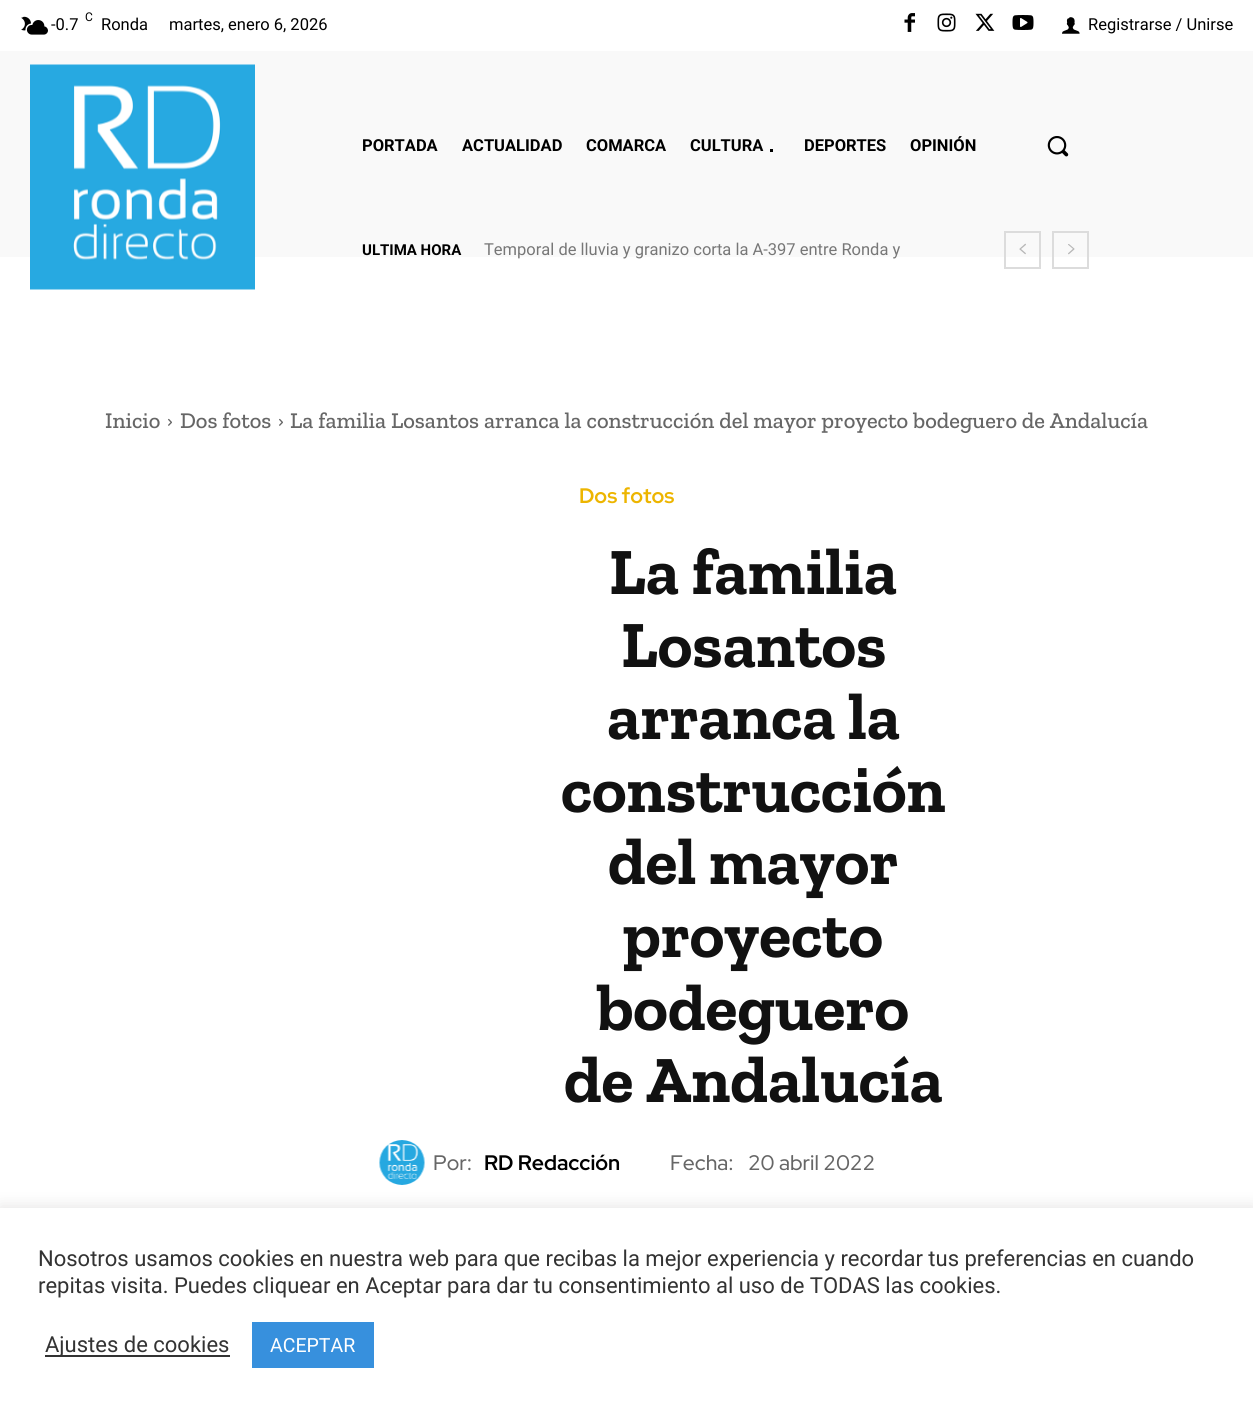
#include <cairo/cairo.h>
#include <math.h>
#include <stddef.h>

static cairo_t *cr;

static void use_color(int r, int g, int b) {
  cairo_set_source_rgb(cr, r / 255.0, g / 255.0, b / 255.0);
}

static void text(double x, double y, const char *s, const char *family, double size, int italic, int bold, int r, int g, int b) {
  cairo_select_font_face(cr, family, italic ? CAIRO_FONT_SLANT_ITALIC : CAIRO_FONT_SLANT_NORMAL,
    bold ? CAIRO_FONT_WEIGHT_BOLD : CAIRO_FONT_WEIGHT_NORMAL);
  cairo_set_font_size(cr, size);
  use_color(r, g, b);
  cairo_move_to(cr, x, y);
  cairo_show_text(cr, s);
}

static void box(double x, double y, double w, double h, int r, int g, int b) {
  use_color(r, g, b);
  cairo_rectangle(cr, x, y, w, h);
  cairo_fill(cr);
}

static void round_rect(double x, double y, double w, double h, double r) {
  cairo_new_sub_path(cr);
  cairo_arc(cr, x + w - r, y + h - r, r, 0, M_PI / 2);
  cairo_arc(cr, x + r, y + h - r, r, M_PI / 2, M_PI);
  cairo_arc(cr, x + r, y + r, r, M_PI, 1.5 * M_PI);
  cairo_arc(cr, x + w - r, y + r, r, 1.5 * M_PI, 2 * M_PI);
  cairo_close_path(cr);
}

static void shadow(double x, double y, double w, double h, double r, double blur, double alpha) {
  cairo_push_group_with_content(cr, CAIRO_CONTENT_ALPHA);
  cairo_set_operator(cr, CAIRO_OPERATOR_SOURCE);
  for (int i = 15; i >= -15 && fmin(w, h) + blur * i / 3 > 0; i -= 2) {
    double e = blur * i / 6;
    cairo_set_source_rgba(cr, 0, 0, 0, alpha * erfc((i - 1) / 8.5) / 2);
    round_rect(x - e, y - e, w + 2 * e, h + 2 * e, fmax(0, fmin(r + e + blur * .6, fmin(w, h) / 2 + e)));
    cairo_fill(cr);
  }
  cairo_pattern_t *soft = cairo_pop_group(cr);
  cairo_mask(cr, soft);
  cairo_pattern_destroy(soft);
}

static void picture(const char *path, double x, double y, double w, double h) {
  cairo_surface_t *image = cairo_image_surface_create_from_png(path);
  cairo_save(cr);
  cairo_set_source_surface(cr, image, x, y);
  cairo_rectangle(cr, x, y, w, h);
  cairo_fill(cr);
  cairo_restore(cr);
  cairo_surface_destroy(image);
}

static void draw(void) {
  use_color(255, 255, 255);
  cairo_paint(cr);
  picture("img_01.png", 21, 16, 27, 19);
  picture("img_02.png", 904, 13, 11, 19);
  picture("img_03.png", 937, 13, 19, 19);
  picture("img_04.png", 975, 13, 20, 18);
  picture("img_05.png", 1012, 15, 22, 15);
  picture("img_06.png", 1062, 17, 18, 17);
  box(0, 51, 1253, 206, 249, 249, 249);
  picture("img_07.png", 30, 64, 225, 226);
  box(770, 149, 3, 3, 0, 0, 0);
  picture("img_08.png", 1047, 136, 22, 21);
  cairo_rectangle(cr, 1005, 232, 35, 36);
  use_color(220, 220, 220);
  cairo_stroke(cr);
  picture("img_09.png", 1019, 243, 7, 12);
  cairo_rectangle(cr, 1053, 232, 35, 36);
  cairo_stroke(cr);
  picture("img_10.png", 1068, 244, 7, 11);
  picture("img_11.png", 168, 418, 4, 8);
  picture("img_11.png", 279, 418, 4, 8);
  picture("img_12.png", 379, 1140, 46, 45);
  use_color(172, 171, 171);
  shadow(0, 1206, 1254, 206, 0, 7.5, 0.3);
  box(0, 1208, 1253, 204, 255, 255, 255);
  box(45, 1355, 185, 2, 51, 51, 51);
  box(252, 1322, 122, 46, 55, 144, 221);
  text(85, 21, "C", "Roboto", 12, 0, 0, 0, 0, 0);
  text(51, 30, "-0.7", "Roboto", 16.5, 0, 0, 0, 0, 0);
  text(101, 30, "Ronda", "Roboto", 16.5, 0, 0, 0, 0, 0);
  text(169, 30, "martes, enero 6, 2026", "Roboto", 16.5, 0, 0, 0, 0, 0);
  text(1088, 30, "Registrarse / Unirse", "Roboto", 16.5, 0, 0, 0, 0, 0);
  text(362, 151, "PORTADA", "Roboto", 16.5, 0, 1, 0, 0, 0);
  text(462, 151, "ACTUALIDAD", "Roboto", 16.5, 0, 1, 0, 0, 0);
  text(586, 151, "COMARCA", "Roboto", 16.5, 0, 1, 0, 0, 0);
  text(690, 151, "CULTURA", "Roboto", 16.5, 0, 1, 0, 0, 0);
  text(804, 151, "DEPORTES", "Roboto", 16.5, 0, 1, 0, 0, 0);
  text(910, 151, "OPINIÓN", "Roboto", 16.5, 0, 1, 0, 0, 0);
  text(362, 255, "ULTIMA HORA", "Roboto", 15, 0, 1, 0, 0, 0);
  text(484, 255, "Temporal de lluvia y granizo corta la A-397 entre Ronda y", "Roboto", 16.5, 0, 0, 119, 119, 119);
  text(105, 428, "Inicio", "Zilla Slab Medium", 22.5, 0, 0, 102, 102, 102);
  text(180, 428, "Dos fotos", "Zilla Slab Medium", 22.5, 0, 0, 102, 102, 102);
  text(290, 428, "La familia Losantos arranca la construcción del mayor proyecto bodeguero de Andalucía", "Zilla Slab Medium", 22.5, 0, 0, 102, 102, 102);
  text(579, 503, "Dos fotos", "Red Hat Display", 21, 0, 1, 237, 181, 0);
  text(609, 594, "La familia", "Zilla Slab", 66, 0, 1, 17, 17, 17);
  text(621, 667, "Losantos", "Zilla Slab", 66, 0, 1, 17, 17, 17);
  text(607, 739, "arranca la", "Zilla Slab", 66, 0, 1, 17, 17, 17);
  text(561, 812, "construcción", "Zilla Slab", 66, 0, 1, 17, 17, 17);
  text(608, 884, "del mayor", "Zilla Slab", 66, 0, 1, 17, 17, 17);
  text(623, 957, "proyecto", "Zilla Slab", 66, 0, 1, 17, 17, 17);
  text(597, 1030, "bodeguero", "Zilla Slab", 66, 0, 1, 17, 17, 17);
  text(564, 1102, "de Andalucía", "Zilla Slab", 66, 0, 1, 17, 17, 17);
  text(433, 1170, "Por:", "Red Hat Display Medium", 21, 0, 0, 102, 102, 102);
  text(484, 1170, "RD Redacción", "Red Hat Display", 21, 0, 1, 0, 0, 0);
  text(670, 1170, "Fecha:", "Red Hat Display Medium", 21, 0, 0, 102, 102, 102);
  text(748, 1170, "20 abril 2022", "Red Hat Display Medium", 21, 0, 0, 102, 102, 102);
  text(38, 1266, "Nosotros usamos cookies en nuestra web para que recibas la mejor experiencia y recordar tus preferencias en cuando", "Roboto", 22, 0, 0, 51, 51, 51);
  text(38, 1293, "repitas visita. Puedes cliquear en Aceptar para dar tu consentimiento al uso de TODAS las cookies.", "Roboto", 22, 0, 0, 51, 51, 51);
  text(45, 1352, "Ajustes de cookies", "Roboto", 22, 0, 0, 51, 51, 51);
  text(270, 1352, "ACEPTAR", "Roboto", 19.5, 0, 0, 255, 255, 255);
}

int main(void) {
  cairo_surface_t *surface = cairo_image_surface_create(CAIRO_FORMAT_RGB24, 1253, 1412);
  cr = cairo_create(surface);
  cairo_font_options_t *options = cairo_font_options_create();
  cairo_font_options_set_hint_metrics(options, CAIRO_HINT_METRICS_OFF);
  cairo_font_options_set_hint_style(options, CAIRO_HINT_STYLE_NONE);
  cairo_set_font_options(cr, options);
  cairo_set_miter_limit(cr, 4);
  draw();
  cairo_surface_write_to_png(surface, "out.png");
  cairo_font_options_destroy(options);
  cairo_destroy(cr);
  cairo_surface_destroy(surface);
  return 0;
}
